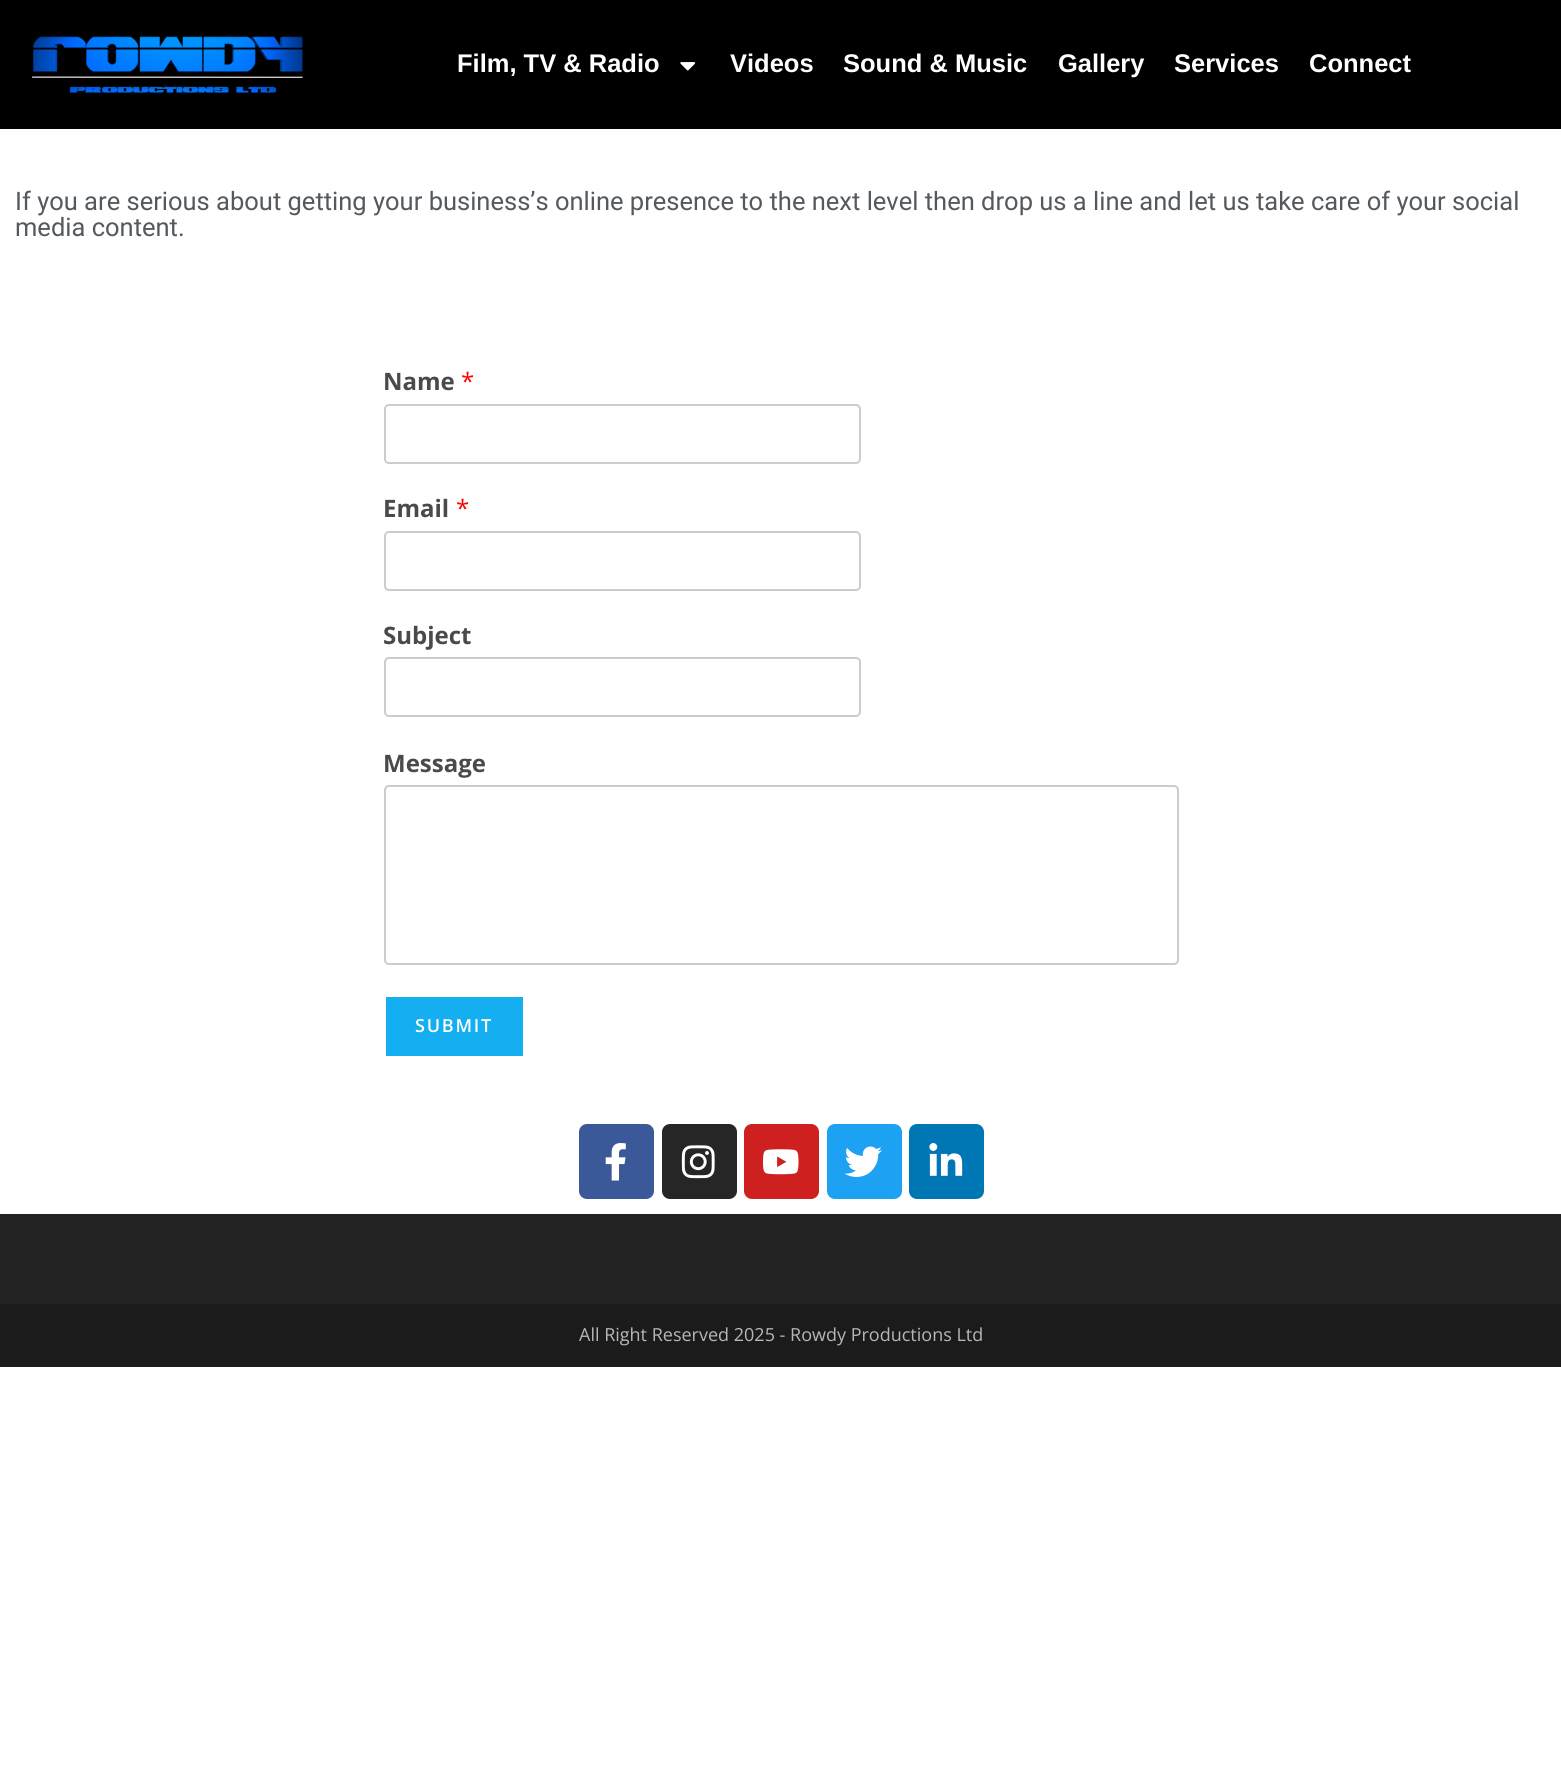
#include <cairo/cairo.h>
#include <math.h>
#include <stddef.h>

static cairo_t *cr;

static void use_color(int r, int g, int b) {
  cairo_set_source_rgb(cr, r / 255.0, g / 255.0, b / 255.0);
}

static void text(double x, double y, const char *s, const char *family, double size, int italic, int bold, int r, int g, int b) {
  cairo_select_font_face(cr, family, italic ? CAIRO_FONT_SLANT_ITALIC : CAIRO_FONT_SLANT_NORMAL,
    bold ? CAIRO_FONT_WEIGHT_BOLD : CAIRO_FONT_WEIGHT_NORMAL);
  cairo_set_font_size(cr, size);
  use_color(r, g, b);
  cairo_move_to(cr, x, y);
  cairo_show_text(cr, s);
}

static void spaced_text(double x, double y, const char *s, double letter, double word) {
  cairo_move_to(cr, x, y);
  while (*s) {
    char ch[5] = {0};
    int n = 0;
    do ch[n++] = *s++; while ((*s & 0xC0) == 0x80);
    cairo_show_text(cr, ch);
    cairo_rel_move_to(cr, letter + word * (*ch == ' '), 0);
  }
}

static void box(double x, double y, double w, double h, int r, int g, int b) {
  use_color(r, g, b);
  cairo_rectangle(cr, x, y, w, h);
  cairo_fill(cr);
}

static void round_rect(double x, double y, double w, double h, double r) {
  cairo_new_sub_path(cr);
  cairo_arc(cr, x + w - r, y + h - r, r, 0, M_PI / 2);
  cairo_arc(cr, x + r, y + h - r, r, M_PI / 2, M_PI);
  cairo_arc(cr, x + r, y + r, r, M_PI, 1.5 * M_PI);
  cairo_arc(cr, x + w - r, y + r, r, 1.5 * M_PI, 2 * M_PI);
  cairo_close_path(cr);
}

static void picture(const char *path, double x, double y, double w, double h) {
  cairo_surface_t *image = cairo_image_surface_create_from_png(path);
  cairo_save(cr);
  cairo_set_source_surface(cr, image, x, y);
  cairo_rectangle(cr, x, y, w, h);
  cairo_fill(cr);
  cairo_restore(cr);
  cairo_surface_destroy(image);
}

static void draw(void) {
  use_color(255, 255, 255);
  cairo_paint(cr);
  box(0, 0, 1561, 129, 0, 0, 0);
  picture("img_01.png", 32, 36, 271, 57);
  picture("img_02.png", 680, 62, 16, 9);
  round_rect(385, 405, 475, 58, 4);
  use_color(204, 204, 204);
  cairo_stroke(cr);
  round_rect(385, 532, 475, 58, 4);
  cairo_stroke(cr);
  round_rect(385, 658, 475, 58, 4);
  cairo_stroke(cr);
  round_rect(385, 786, 793, 178, 4);
  cairo_stroke(cr);
  box(386, 997, 137, 59, 19, 175, 240);
  use_color(59, 89, 152);
  round_rect(579, 1124, 75, 75, 8);
  cairo_fill(cr);
  picture("img_03.png", 605, 1143, 21, 38);
  use_color(38, 38, 38);
  round_rect(662, 1124, 75, 75, 8);
  cairo_fill(cr);
  picture("img_04.png", 681, 1145, 34, 34);
  use_color(205, 32, 31);
  round_rect(744, 1124, 75, 75, 8);
  cairo_fill(cr);
  picture("img_05.png", 763, 1149, 36, 26);
  use_color(29, 161, 242);
  round_rect(827, 1124, 75, 75, 8);
  cairo_fill(cr);
  picture("img_06.png", 845, 1146, 37, 31);
  use_color(0, 119, 181);
  round_rect(909, 1124, 75, 75, 8);
  cairo_fill(cr);
  picture("img_07.png", 929, 1143, 34, 33);
  box(0, 1214, 1561, 90, 34, 34, 34);
  box(0, 1304, 1561, 63, 27, 27, 27);
  text(457, 72, "Film, TV & Radio", "Liberation Sans", 25.5, 0, 1, 255, 255, 255);
  text(730, 72, "Videos", "Liberation Sans", 25.5, 0, 1, 255, 255, 255);
  text(843, 72, "Sound & Music", "Liberation Sans", 25.5, 0, 1, 255, 255, 255);
  text(1058, 72, "Gallery", "Liberation Sans", 25.5, 0, 1, 255, 255, 255);
  text(1174, 72, "Services", "Liberation Sans", 25.5, 0, 1, 255, 255, 255);
  text(1309, 72, "Connect", "Liberation Sans", 25.5, 0, 1, 255, 255, 255);
  text(15, 210, "If you are serious about getting your business’s online presence to the next level then drop us a line and let us take care of your social", "Roboto", 25.5, 0, 0, 84, 89, 95);
  text(15, 236, "media content.", "Roboto", 25.5, 0, 0, 84, 89, 95);
  text(383, 390, "Name", "Open Sans", 24, 0, 1, 74, 74, 74);
  text(461, 390, "*", "Open Sans", 24, 0, 0, 255, 0, 0);
  text(383, 517, "Email", "Open Sans", 24, 0, 1, 74, 74, 74);
  text(456, 517, "*", "Open Sans", 24, 0, 0, 255, 0, 0);
  text(383, 644, "Subject", "Open Sans", 24, 0, 1, 74, 74, 74);
  text(383, 772, "Message", "Open Sans", 24, 0, 1, 74, 74, 74);
  cairo_select_font_face(cr, "Open Sans SemiBold", CAIRO_FONT_SLANT_NORMAL, CAIRO_FONT_WEIGHT_NORMAL);
  cairo_set_font_size(cr, 18);
  use_color(255, 255, 255);
  spaced_text(415, 1032, "SUBMIT", 1.75, 0);
  text(579, 1341, "All Right Reserved 2025 - Rowdy Productions Ltd", "Open Sans", 18, 0, 0, 183, 183, 183);
}

int main(void) {
  cairo_surface_t *surface = cairo_image_surface_create(CAIRO_FORMAT_RGB24, 1561, 1784);
  cr = cairo_create(surface);
  cairo_font_options_t *options = cairo_font_options_create();
  cairo_font_options_set_hint_metrics(options, CAIRO_HINT_METRICS_OFF);
  cairo_font_options_set_hint_style(options, CAIRO_HINT_STYLE_NONE);
  cairo_set_font_options(cr, options);
  cairo_set_miter_limit(cr, 4);
  draw();
  cairo_surface_write_to_png(surface, "out.png");
  cairo_font_options_destroy(options);
  cairo_destroy(cr);
  cairo_surface_destroy(surface);
  return 0;
}
